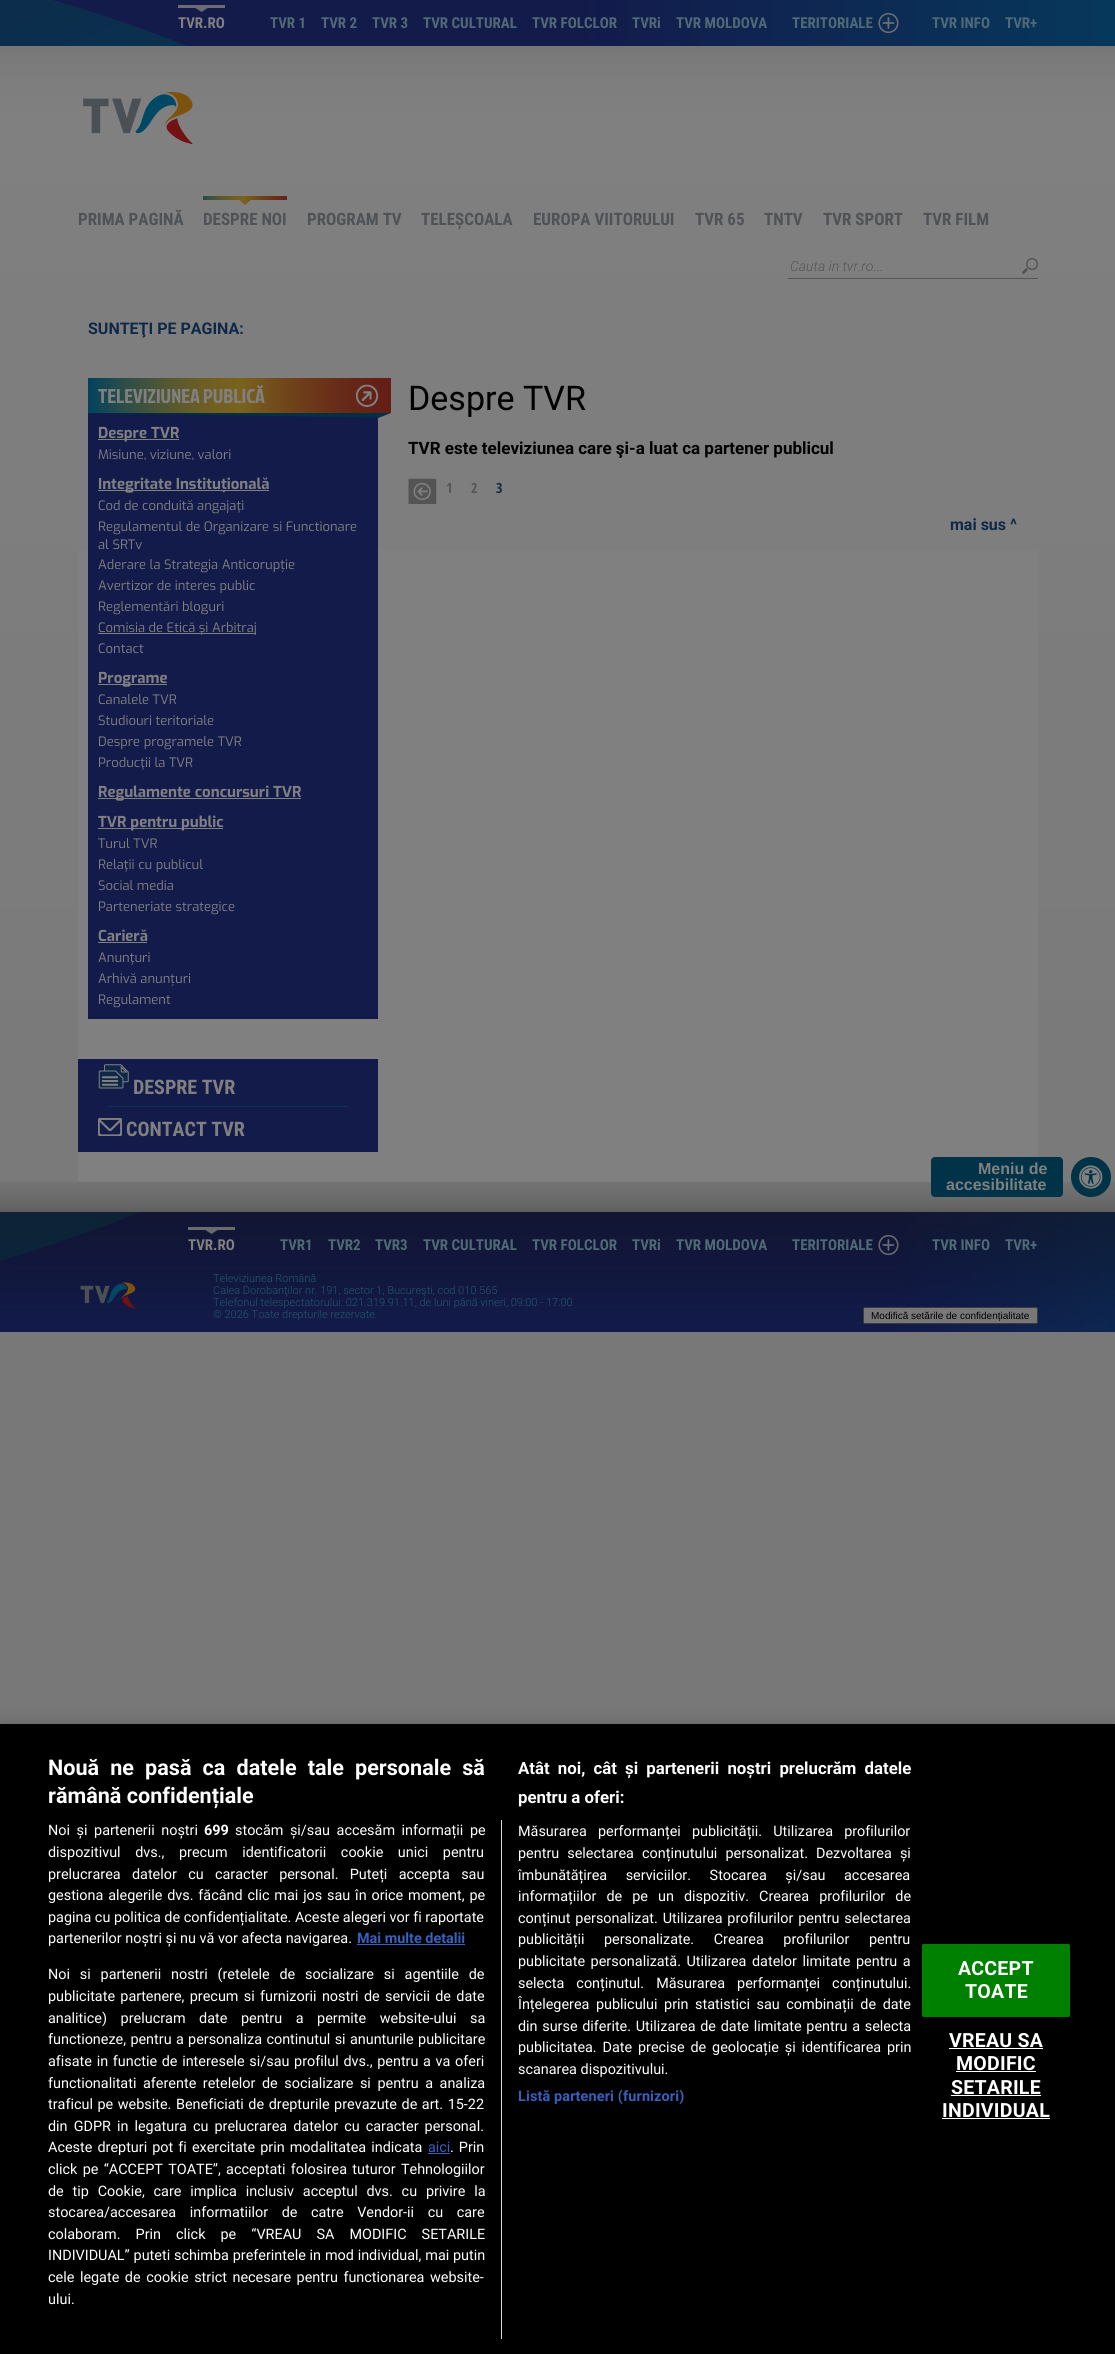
#include <cairo/cairo.h>
#include <math.h>
#include <stddef.h>

static cairo_t *cr;

static void use_color(int r, int g, int b) {
  cairo_set_source_rgb(cr, r / 255.0, g / 255.0, b / 255.0);
}

static void text(double x, double y, const char *s, const char *family, double size, int italic, int bold, int r, int g, int b) {
  cairo_select_font_face(cr, family, italic ? CAIRO_FONT_SLANT_ITALIC : CAIRO_FONT_SLANT_NORMAL,
    bold ? CAIRO_FONT_WEIGHT_BOLD : CAIRO_FONT_WEIGHT_NORMAL);
  cairo_set_font_size(cr, size);
  use_color(r, g, b);
  cairo_move_to(cr, x, y);
  cairo_show_text(cr, s);
}

static void spaced_text(double x, double y, const char *s, double letter, double word) {
  cairo_move_to(cr, x, y);
  while (*s) {
    char ch[5] = {0};
    int n = 0;
    do ch[n++] = *s++; while ((*s & 0xC0) == 0x80);
    cairo_show_text(cr, ch);
    cairo_rel_move_to(cr, letter + word * (*ch == ' '), 0);
  }
}

static void box(double x, double y, double w, double h, int r, int g, int b) {
  use_color(r, g, b);
  cairo_rectangle(cr, x, y, w, h);
  cairo_fill(cr);
}

static void round_rect(double x, double y, double w, double h, double r) {
  cairo_new_sub_path(cr);
  cairo_arc(cr, x + w - r, y + h - r, r, 0, M_PI / 2);
  cairo_arc(cr, x + r, y + h - r, r, M_PI / 2, M_PI);
  cairo_arc(cr, x + r, y + r, r, M_PI, 1.5 * M_PI);
  cairo_arc(cr, x + w - r, y + r, r, 1.5 * M_PI, 2 * M_PI);
  cairo_close_path(cr);
}

static void shadow(double x, double y, double w, double h, double r, double blur, double alpha) {
  cairo_push_group_with_content(cr, CAIRO_CONTENT_ALPHA);
  cairo_set_operator(cr, CAIRO_OPERATOR_SOURCE);
  for (int i = 15; i >= -15 && fmin(w, h) + blur * i / 3 > 0; i -= 2) {
    double e = blur * i / 6;
    cairo_set_source_rgba(cr, 0, 0, 0, alpha * erfc((i - 1) / 8.5) / 2);
    round_rect(x - e, y - e, w + 2 * e, h + 2 * e, fmax(0, fmin(r + e + blur * .6, fmin(w, h) / 2 + e)));
    cairo_fill(cr);
  }
  cairo_pattern_t *soft = cairo_pop_group(cr);
  cairo_mask(cr, soft);
  cairo_pattern_destroy(soft);
}

static void picture(const char *path, double x, double y, double w, double h) {
  cairo_surface_t *image = cairo_image_surface_create_from_png(path);
  cairo_save(cr);
  cairo_set_source_surface(cr, image, x, y);
  cairo_rectangle(cr, x, y, w, h);
  cairo_fill(cr);
  cairo_restore(cr);
  cairo_surface_destroy(image);
}

static void draw(void) {
  use_color(120, 120, 120);
  cairo_paint(cr);
  picture("img_01.png", 0, 46, 1115, 1136);
  picture("img_02.png", 0, 0, 1115, 46);
  picture("img_03.png", 178, 5, 47, 7);
  picture("img_04.png", 878, 13, 21, 20);
  picture("img_05.png", 83, 92, 110, 52);
  picture("img_06.png", 203, 196, 84, 9);
  box(788, 278, 250, 1, 85, 85, 85);
  picture("img_07.png", 1022, 258, 16, 16);
  box(78, 550, 960, 632, 128, 128, 128);
  picture("img_08.png", 88, 378, 303, 35);
  picture("img_09.png", 356, 384, 22, 23);
  box(88, 413, 290, 606, 19, 27, 75);
  picture("img_10.png", 91, 413, 300, 5);
  box(98, 439, 81, 1, 128, 128, 128);
  box(98, 490, 171, 1, 128, 128, 128);
  box(98, 633, 158, 1, 128, 128, 128);
  box(98, 684, 69, 1, 128, 128, 128);
  box(98, 798, 203, 1, 128, 128, 128);
  box(98, 828, 125, 1, 128, 128, 128);
  box(98, 942, 49, 1, 128, 128, 128);
  box(78, 1059, 300, 93, 19, 27, 75);
  picture("img_11.png", 98, 1064, 31, 25);
  cairo_new_path(cr);
  cairo_move_to(cr, 108, 1106.5);
  cairo_line_to(cr, 348, 1106.5);
  use_color(1, 71, 100);
  cairo_set_line_width(cr, 1);
  cairo_set_dash(cr, (double[]){1, 1}, 2, 0);
  cairo_stroke(cr);
  picture("img_12.png", 98, 1118, 24, 18);
  picture("img_13.png", 408, 478, 29, 26);
  box(0, 1182, 1115, 30, 115, 115, 115);
  picture("img_15.png", 0, 1184, 1115, 28);
  use_color(0, 51, 71);
  cairo_arc(cr, 1091, 1177, 20, 0, 2 * M_PI);
  cairo_fill(cr);
  round_rect(931, 1157, 132, 40, 4);
  cairo_fill(cr);
  picture("img_14.png", 1079, 1165, 24, 24);
  picture("img_16.png", 0, 1212, 1115, 120);
  picture("img_17.png", 188, 1227, 47, 7);
  picture("img_18.png", 878, 1235, 21, 20);
  picture("img_19.png", 80, 1282, 56, 27);
  use_color(120, 120, 120);
  round_rect(863.5, 1307.5, 174, 16, 1.5);
  cairo_fill_preserve(cr);
  use_color(59, 59, 59);
  cairo_set_dash(cr, NULL, 0, 0);
  cairo_stroke(cr);
  use_color(0, 0, 0);
  shadow(0, 1724, 1115, 630, 0, 9, 0.2);
  box(0, 1724, 1115, 630, 0, 0, 0);
  box(501, 1820, 1, 519, 216, 216, 216);
  box(357, 1944, 108, 1, 56, 96, 190);
  box(428, 2153, 22, 1, 56, 96, 190);
  use_color(0, 128, 0);
  round_rect(922.5, 1944.5, 147, 72, 1.5);
  cairo_fill_preserve(cr);
  cairo_stroke(cr);
  box(949, 2048, 94, 1, 255, 255, 255);
  box(956, 2071, 80, 1, 255, 255, 255);
  box(951, 2095, 90, 1, 255, 255, 255);
  box(942, 2118, 108, 1, 255, 255, 255);
  text(178, 28, "TVR.RO", "Roboto Condensed", 15, 0, 1, 128, 128, 128);
  text(270, 28, "TVR 1", "Roboto Condensed", 15, 0, 1, 79, 106, 117);
  text(321, 28, "TVR 2", "Roboto Condensed", 15, 0, 1, 79, 106, 117);
  text(372, 28, "TVR 3", "Roboto Condensed", 15, 0, 1, 79, 106, 117);
  text(423, 28, "TVR CULTURAL", "Roboto Condensed", 15, 0, 1, 79, 106, 117);
  text(532, 28, "TVR FOLCLOR", "Roboto Condensed", 15, 0, 1, 79, 106, 117);
  text(632, 28, "TVRi", "Roboto Condensed", 15, 0, 1, 79, 106, 117);
  text(676, 28, "TVR MOLDOVA", "Roboto Condensed", 15, 0, 1, 79, 106, 117);
  text(792, 28, "TERITORIALE", "Roboto Condensed", 15, 0, 1, 79, 106, 117);
  text(932, 28, "TVR INFO", "Roboto Condensed", 15, 0, 1, 79, 106, 117);
  text(1005, 28, "TVR+", "Roboto Condensed", 15, 0, 1, 79, 106, 117);
  text(78, 225, "PRIMA PAGINĂ", "Roboto Condensed", 17, 0, 1, 79, 82, 86);
  text(203, 225, "DESPRE NOI", "Roboto Condensed", 17, 0, 1, 79, 82, 86);
  text(307, 225, "PROGRAM TV", "Roboto Condensed", 17, 0, 1, 79, 82, 86);
  text(421, 225, "TELEȘCOALA", "Roboto Condensed", 17, 0, 1, 79, 82, 86);
  text(533, 225, "EUROPA VIITORULUI", "Roboto Condensed", 17, 0, 1, 79, 82, 86);
  text(695, 225, "TVR 65", "Roboto Condensed", 17, 0, 1, 79, 82, 86);
  text(764, 225, "TNTV", "Roboto Condensed", 17, 0, 1, 79, 82, 86);
  text(823, 225, "TVR SPORT", "Roboto Condensed", 17, 0, 1, 79, 82, 86);
  text(923, 225, "TVR FILM", "Roboto Condensed", 17, 0, 1, 79, 82, 86);
  text(790, 271, "Cauta in tvr.ro...", "Roboto Light", 14, 1, 0, 85, 85, 85);
  text(88, 334, "SUNTEŢI PE PAGINA:", "Roboto", 16, 0, 1, 14, 41, 72);
  text(98, 403, "TELEVIZIUNEA PUBLICĂ", "Jockey One", 20, 0, 0, 128, 128, 128);
  text(98, 438, "Despre TVR", "Exo", 15, 0, 1, 128, 128, 128);
  text(98, 459, "Misiune, viziune, valori", "Exo", 13, 0, 0, 128, 128, 128);
  text(98, 489, "Integritate Instituțională", "Exo", 15, 0, 1, 128, 128, 128);
  text(98, 510, "Cod de conduită angajaţi", "Exo", 13, 0, 0, 128, 128, 128);
  text(98, 531, "Regulamentul de Organizare si Functionare", "Exo", 13, 0, 0, 128, 128, 128);
  text(98, 549, "al SRTv", "Exo", 13, 0, 0, 128, 128, 128);
  text(98, 569, "Aderare la Strategia Anticorupție", "Exo", 13, 0, 0, 128, 128, 128);
  text(98, 590, "Avertizor de interes public", "Exo", 13, 0, 0, 128, 128, 128);
  text(98, 611, "Reglementări bloguri", "Exo", 13, 0, 0, 128, 128, 128);
  text(98, 632, "Comisia de Etică şi Arbitraj", "Exo", 13, 0, 0, 128, 128, 128);
  text(98, 653, "Contact", "Exo", 13, 0, 0, 128, 128, 128);
  text(98, 683, "Programe", "Exo", 15, 0, 1, 128, 128, 128);
  text(98, 704, "Canalele TVR", "Exo", 13, 0, 0, 128, 128, 128);
  text(98, 725, "Studiouri teritoriale", "Exo", 13, 0, 0, 128, 128, 128);
  text(98, 746, "Despre programele TVR", "Exo", 13, 0, 0, 128, 128, 128);
  text(98, 767, "Producţii la TVR", "Exo", 13, 0, 0, 128, 128, 128);
  text(98, 797, "Regulamente concursuri TVR", "Exo", 15, 0, 1, 128, 128, 128);
  text(98, 827, "TVR pentru public", "Exo", 15, 0, 1, 128, 128, 128);
  text(98, 848, "Turul TVR", "Exo", 13, 0, 0, 128, 128, 128);
  text(98, 869, "Relaţii cu publicul", "Exo", 13, 0, 0, 128, 128, 128);
  text(98, 890, "Social media", "Exo", 13, 0, 0, 128, 128, 128);
  text(98, 911, "Parteneriate strategice", "Exo", 13, 0, 0, 128, 128, 128);
  text(98, 941, "Carieră", "Exo", 15, 0, 1, 128, 128, 128);
  text(98, 962, "Anunţuri", "Exo", 13, 0, 0, 128, 128, 128);
  text(98, 983, "Arhivă anunțuri", "Exo", 13, 0, 0, 128, 128, 128);
  text(98, 1004, "Regulament", "Exo", 13, 0, 0, 128, 128, 128);
  text(133, 1094, "DESPRE TVR", "Roboto Condensed", 20, 0, 1, 128, 128, 128);
  text(126, 1136, "CONTACT TVR", "Roboto Condensed", 20, 0, 1, 128, 128, 128);
  text(408, 410, "Despre TVR", "Roboto", 34, 0, 0, 0, 0, 0);
  text(408, 454, "TVR este televiziunea care şi-a luat ca partener publicul", "Roboto", 17, 0, 1, 0, 0, 0);
  text(446, 493, "1", "Open Sans Condensed", 14, 0, 1, 85, 85, 85);
  text(471, 493, "2", "Open Sans Condensed", 14, 0, 1, 85, 85, 85);
  text(496, 493, "3", "Open Sans Condensed", 14, 0, 1, 14, 41, 72);
  text(950, 530, "mai sus ^", "Roboto", 16, 0, 1, 14, 41, 72);
  text(978, 1174, "Meniu de", "Liberation Sans", 16, 0, 1, 128, 128, 128);
  text(946, 1190, "accesibilitate", "Liberation Sans", 16, 0, 1, 128, 128, 128);
  text(188, 1250, "TVR.RO", "Roboto Condensed", 15, 0, 1, 128, 128, 128);
  text(280, 1250, "TVR1", "Roboto Condensed", 15, 0, 1, 79, 106, 117);
  text(328, 1250, "TVR2", "Roboto Condensed", 15, 0, 1, 79, 106, 117);
  text(375, 1250, "TVR3", "Roboto Condensed", 15, 0, 1, 79, 106, 117);
  text(423, 1250, "TVR CULTURAL", "Roboto Condensed", 15, 0, 1, 79, 106, 117);
  text(532, 1250, "TVR FOLCLOR", "Roboto Condensed", 15, 0, 1, 79, 106, 117);
  text(632, 1250, "TVRi", "Roboto Condensed", 15, 0, 1, 79, 106, 117);
  text(676, 1250, "TVR MOLDOVA", "Roboto Condensed", 15, 0, 1, 79, 106, 117);
  text(792, 1250, "TERITORIALE", "Roboto Condensed", 15, 0, 1, 79, 106, 117);
  text(932, 1250, "TVR INFO", "Roboto Condensed", 15, 0, 1, 79, 106, 117);
  text(1005, 1250, "TVR+", "Roboto Condensed", 15, 0, 1, 79, 106, 117);
  text(213, 1282, "Televiziunea Română", "Roboto Light", 11, 0, 0, 36, 86, 107);
  text(213, 1294, "Calea Dorobanţilor nr. 191, sector 1, Bucureşti, cod 010.565", "Roboto Light", 11, 0, 0, 36, 86, 107);
  text(213, 1306, "Telefonul telespectatorului: 021.319.91.11, de luni până vineri, 09:00 - 17:00", "Roboto Light", 11, 0, 0, 36, 86, 107);
  text(213, 1318, "© 2026 Toate drepturile rezervate.", "Roboto Light", 11, 0, 0, 36, 86, 107);
  text(871, 1319, "Modifică setările de confidențialitate", "Liberation Sans", 10, 0, 0, 0, 0, 0);
  cairo_select_font_face(cr, "Roboto", CAIRO_FONT_SLANT_NORMAL, CAIRO_FONT_WEIGHT_BOLD);
  cairo_set_font_size(cr, 21.6);
  use_color(255, 255, 255);
  spaced_text(48, 1775, "Nouă ne pasă ca datele tale personale să", 0, 5.75);
  text(48, 1803, "rămână confidențiale", "Roboto", 21.6, 0, 1, 255, 255, 255);
  cairo_set_font_size(cr, 16.8);
  spaced_text(518, 1774, "Atât noi, cât și partenerii noștri prelucrăm datele", 0, 4);
  text(518, 1803, "pentru a oferi:", "Roboto", 16.8, 0, 1, 255, 255, 255);
  cairo_select_font_face(cr, "Roboto", CAIRO_FONT_SLANT_NORMAL, CAIRO_FONT_WEIGHT_NORMAL);
  cairo_set_font_size(cr, 14.4);
  spaced_text(518, 1836, "Măsurarea performanței publicității. Utilizarea profilurilor", 0, 7.5);
  spaced_text(518, 1858, "pentru selectarea conținutului personalizat. Dezvoltarea și", 0, 4.5);
  spaced_text(518, 1880, "îmbunătățirea serviciilor. Stocarea și/sau accesarea", 0, 15);
  spaced_text(518, 1901, "informațiilor de pe un dispozitiv. Crearea profilurilor de", 0, 6.5);
  spaced_text(518, 1923, "conținut personalizat. Utilizarea profilurilor pentru selectarea", 0, 1.25);
  spaced_text(518, 1944, "publicității personalizate. Crearea profilurilor pentru", 0, 16);
  spaced_text(518, 1966, "publicitate personalizată. Utilizarea datelor limitate pentru a", 0, 2);
  spaced_text(518, 1988, "selecta conținutul. Măsurarea performanței conținutului.", 0, 8.5);
  spaced_text(518, 2009, "Înțelegerea publicului prin statistici sau combinații de date", 0, 3);
  spaced_text(518, 2031, "din surse diferite. Utilizarea de date limitate pentru a selecta", 0, 1.1);
  spaced_text(518, 2052, "publicitatea. Date precise de geolocație și identificarea prin", 0, 2.25);
  text(518, 2074, "scanarea dispozitivului.", "Roboto", 14.4, 0, 0, 255, 255, 255);
  cairo_select_font_face(cr, "Roboto", CAIRO_FONT_SLANT_NORMAL, CAIRO_FONT_WEIGHT_BOLD);
  use_color(56, 96, 190);
  spaced_text(518, 2101, "Listă parteneri (furnizori)", 0.15, 0);
  cairo_select_font_face(cr, "Roboto", CAIRO_FONT_SLANT_NORMAL, CAIRO_FONT_WEIGHT_NORMAL);
  use_color(255, 255, 255);
  spaced_text(48, 1835, "Noi și partenerii noștri", 0, 3);
  text(204, 1835, "699", "Roboto", 14.4, 0, 1, 255, 255, 255);
  cairo_select_font_face(cr, "Roboto", CAIRO_FONT_SLANT_NORMAL, CAIRO_FONT_WEIGHT_NORMAL);
  spaced_text(235, 1835, "stocăm și/sau accesăm informații pe", 0, 3);
  spaced_text(48, 1857, "dispozitivul dvs., precum identificatorii cookie unici pentru", 0, 11);
  spaced_text(48, 1879, "prelucrarea datelor cu caracter personal. Puteți accepta sau", 0, 7.75);
  spaced_text(48, 1900, "gestiona alegerile dvs. făcând clic mai jos sau în orice moment, pe", 0, 1.25);
  text(48, 1922, "pagina cu politica de confidențialitate. Aceste alegeri vor fi raportate", "Roboto", 14.4, 0, 0, 255, 255, 255);
  text(48, 1943, "partenerilor noștri și nu vă vor afecta navigarea.", "Roboto", 14.4, 0, 0, 255, 255, 255);
  text(357, 1943, "Mai multe detalii", "Roboto", 14.4, 0, 1, 56, 96, 190);
  cairo_select_font_face(cr, "Roboto", CAIRO_FONT_SLANT_NORMAL, CAIRO_FONT_WEIGHT_NORMAL);
  use_color(255, 255, 255);
  spaced_text(48, 1979, "Noi si partenerii nostri (retelele de socializare si agentiile de", 0, 6.25);
  spaced_text(48, 2001, "publicitate partenere, precum si furnizorii nostri de servicii de date", 0, 1.75);
  spaced_text(48, 2023, "analitice) prelucram date pentru a permite website-ului sa", 0, 10);
  spaced_text(48, 2044, "functioneze, pentru a personaliza continutul si anunturile publicitare", 0, 0.75);
  spaced_text(48, 2066, "afisate in functie de interesele si/sau profilul dvs., pentru a va oferi", 0, 1.1);
  spaced_text(48, 2088, "functionalitati aferente retelelor de socializare si pentru a analiza", 0, 3);
  spaced_text(48, 2109, "traficul pe website. Beneficiati de drepturile prevazute de art. 15-22", 0, 1);
  spaced_text(48, 2131, "din GDPR in legatura cu prelucrarea datelor cu caracter personal.", 0, 2.5);
  spaced_text(48, 2152, "Aceste drepturi pot fi exercitate prin modalitatea indicata", 0, 1.5);
  text(428, 2152, "aici", "Roboto", 14.4, 0, 0, 56, 96, 190);
  use_color(255, 255, 255);
  spaced_text(450, 2152, ". Prin", 0, 1.5);
  spaced_text(48, 2174, "click pe “ACCEPT TOATE”, acceptati folosirea tuturor Tehnologiilor", 0, 1.75);
  spaced_text(48, 2196, "de tip Cookie, care implica inclusiv acceptul dvs. cu privire la", 0, 5.25);
  spaced_text(48, 2217, "stocarea/accesarea informatiilor de catre Vendor-ii cu care", 0, 10);
  spaced_text(48, 2239, "colaboram. Prin click pe “VREAU SA MODIFIC SETARILE", 0, 11.5);
  spaced_text(48, 2260, "INDIVIDUAL” puteti schimba preferintele in mod individual, mai putin", 0, 0.25);
  spaced_text(48, 2282, "cele legate de cookie strict necesare pentru functionarea website-", 0, 2);
  text(48, 2304, "ului.", "Roboto", 14.4, 0, 0, 255, 255, 255);
  cairo_select_font_face(cr, "Roboto", CAIRO_FONT_SLANT_NORMAL, CAIRO_FONT_WEIGHT_BOLD);
  cairo_set_font_size(cr, 19.5);
  spaced_text(958, 1975, "ACCEPT", 0.25, 0);
  spaced_text(965, 1998, "TOATE", 0.25, 0);
  spaced_text(949, 2047, "VREAU SA", 0.25, 0);
  spaced_text(956, 2070, "MODIFIC", 0.25, 0);
  spaced_text(951, 2094, "SETARILE", 0.25, 0);
  spaced_text(942, 2117, "INDIVIDUAL", 0.25, 0);
}

int main(void) {
  cairo_surface_t *surface = cairo_image_surface_create(CAIRO_FORMAT_RGB24, 1115, 2354);
  cr = cairo_create(surface);
  cairo_font_options_t *options = cairo_font_options_create();
  cairo_font_options_set_hint_metrics(options, CAIRO_HINT_METRICS_OFF);
  cairo_font_options_set_hint_style(options, CAIRO_HINT_STYLE_NONE);
  cairo_set_font_options(cr, options);
  cairo_set_miter_limit(cr, 4);
  draw();
  cairo_surface_write_to_png(surface, "out.png");
  cairo_font_options_destroy(options);
  cairo_destroy(cr);
  cairo_surface_destroy(surface);
  return 0;
}
